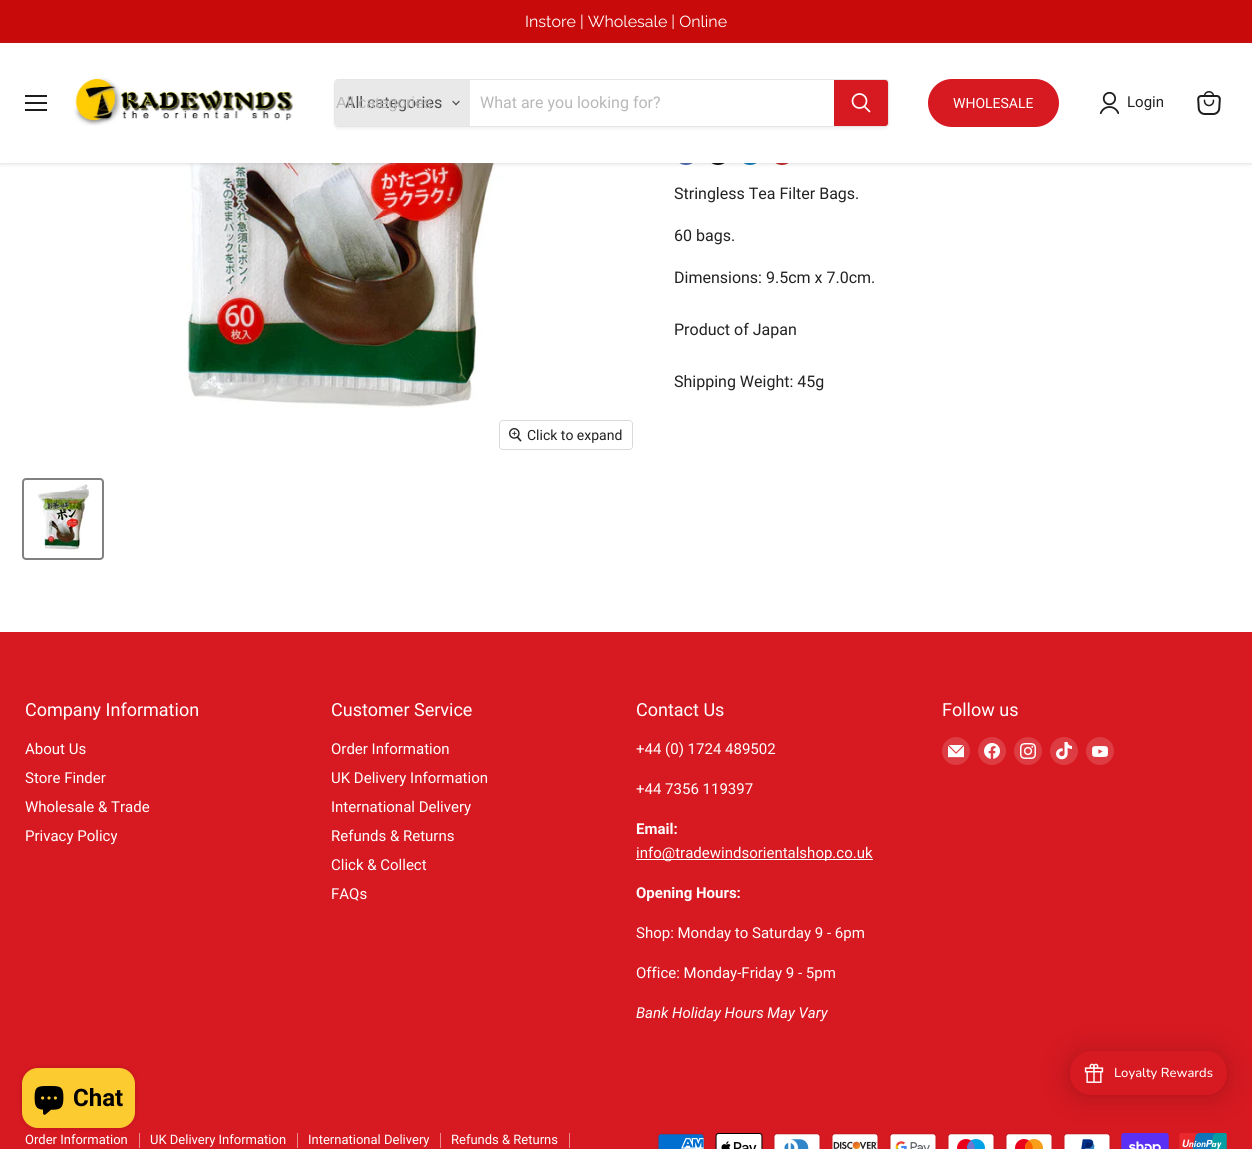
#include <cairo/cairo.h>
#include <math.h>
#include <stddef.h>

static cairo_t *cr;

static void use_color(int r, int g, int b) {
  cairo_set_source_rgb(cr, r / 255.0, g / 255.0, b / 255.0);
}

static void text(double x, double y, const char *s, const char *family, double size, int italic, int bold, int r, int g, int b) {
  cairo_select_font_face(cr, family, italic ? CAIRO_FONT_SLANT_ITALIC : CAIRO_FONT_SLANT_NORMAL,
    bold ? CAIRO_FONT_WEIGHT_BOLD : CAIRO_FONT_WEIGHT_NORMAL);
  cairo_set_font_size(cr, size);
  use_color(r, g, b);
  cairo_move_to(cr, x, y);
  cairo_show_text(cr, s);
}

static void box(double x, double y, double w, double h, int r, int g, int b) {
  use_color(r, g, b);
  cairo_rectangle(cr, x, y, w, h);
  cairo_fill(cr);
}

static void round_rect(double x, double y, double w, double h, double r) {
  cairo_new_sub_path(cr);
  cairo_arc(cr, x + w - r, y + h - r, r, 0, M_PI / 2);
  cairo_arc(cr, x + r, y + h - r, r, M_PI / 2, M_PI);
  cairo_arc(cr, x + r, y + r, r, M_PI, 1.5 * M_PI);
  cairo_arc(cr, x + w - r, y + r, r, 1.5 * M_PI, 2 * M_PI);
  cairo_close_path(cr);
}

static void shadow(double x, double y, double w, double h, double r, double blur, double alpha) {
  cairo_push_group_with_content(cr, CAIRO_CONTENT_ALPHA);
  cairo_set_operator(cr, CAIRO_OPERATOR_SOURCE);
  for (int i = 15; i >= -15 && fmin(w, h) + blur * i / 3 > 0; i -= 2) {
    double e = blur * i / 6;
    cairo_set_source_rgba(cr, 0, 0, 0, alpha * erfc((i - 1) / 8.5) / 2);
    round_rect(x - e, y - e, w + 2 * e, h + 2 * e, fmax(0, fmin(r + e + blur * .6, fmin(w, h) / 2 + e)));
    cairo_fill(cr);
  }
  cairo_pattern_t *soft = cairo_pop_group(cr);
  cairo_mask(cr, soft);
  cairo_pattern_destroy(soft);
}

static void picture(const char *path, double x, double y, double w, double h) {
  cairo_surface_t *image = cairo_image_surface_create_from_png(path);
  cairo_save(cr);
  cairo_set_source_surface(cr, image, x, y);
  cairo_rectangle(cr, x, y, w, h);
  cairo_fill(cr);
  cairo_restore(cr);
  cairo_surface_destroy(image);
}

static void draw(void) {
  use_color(255, 255, 255);
  cairo_paint(cr);
  box(0, 0, 1252, 43, 201, 10, 10);
  use_color(66, 93, 171);
  cairo_arc(cr, 686, 153, 12, 0, 2 * M_PI);
  cairo_fill(cr);
  use_color(0, 0, 0);
  cairo_arc(cr, 718, 153, 12, 0, 2 * M_PI);
  cairo_fill(cr);
  use_color(0, 119, 181);
  cairo_arc(cr, 750, 153, 12, 0, 2 * M_PI);
  cairo_fill(cr);
  use_color(189, 28, 28);
  cairo_arc(cr, 782, 153, 12, 0, 2 * M_PI);
  cairo_fill(cr);
  picture("img_05.png", 152, 163, 372, 245);
  use_color(128, 128, 128);
  shadow(0, 44, 1252, 120, 0, 2, 0.25);
  box(0, 43, 1252, 120, 255, 255, 255);
  box(25, 95, 22, 2, 29, 29, 29);
  box(25, 102, 22, 2, 29, 29, 29);
  box(25, 109, 22, 2, 29, 29, 29);
  picture("img_01.png", 74, 77, 220, 49);
  cairo_save(cr);
  cairo_set_fill_rule(cr, CAIRO_FILL_RULE_EVEN_ODD);
  cairo_new_path(cr);
  cairo_move_to(cr, 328, 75);
  cairo_line_to(cr, 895, 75);
  cairo_line_to(cr, 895, 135);
  cairo_line_to(cr, 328, 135);
  cairo_close_path(cr);
  cairo_move_to(cr, 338, 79);
  cairo_line_to(cr, 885, 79);
  cairo_curve_to(cr, 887, 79, 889, 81, 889, 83);
  cairo_line_to(cr, 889, 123);
  cairo_curve_to(cr, 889, 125, 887, 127, 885, 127);
  cairo_line_to(cr, 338, 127);
  cairo_curve_to(cr, 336, 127, 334, 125, 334, 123);
  cairo_line_to(cr, 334, 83);
  cairo_curve_to(cr, 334, 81, 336, 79, 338, 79);
  cairo_close_path(cr);
  cairo_clip(cr);
  use_color(128, 128, 128);
  shadow(334, 81, 555, 48, 4, 1.5, 0.11);
  cairo_restore(cr);
  round_rect(334.5, 79.5, 554, 47, 3.5);
  cairo_set_source_rgba(cr, 0.502, 0.502, 0.502, 0.2);
  cairo_set_line_width(cr, 1);
  cairo_stroke(cr);
  use_color(233, 233, 233);
  cairo_new_path(cr);
  cairo_move_to(cr, 338, 80);
  cairo_line_to(cr, 470, 80);
  cairo_line_to(cr, 470, 126);
  cairo_line_to(cr, 338, 126);
  cairo_curve_to(cr, 336.5, 126, 335, 124.5, 335, 123);
  cairo_line_to(cr, 335, 83);
  cairo_curve_to(cr, 335, 81.5, 336.5, 80, 338, 80);
  cairo_close_path(cr);
  cairo_fill(cr);
  picture("img_02.png", 452, 100, 8, 6);
  use_color(215, 25, 33);
  cairo_new_path(cr);
  cairo_move_to(cr, 834.5, 80.5);
  cairo_line_to(cr, 885, 80.5);
  cairo_curve_to(cr, 886.5, 80.5, 887.5, 81.5, 887.5, 83);
  cairo_line_to(cr, 887.5, 123);
  cairo_curve_to(cr, 887.5, 124.5, 886.5, 125.5, 885, 125.5);
  cairo_line_to(cr, 834.5, 125.5);
  cairo_close_path(cr);
  cairo_fill_preserve(cr);
  cairo_stroke(cr);
  cairo_new_path(cr);
  cairo_move_to(cr, 869.5, 111.5);
  cairo_line_to(cr, 864.5, 106.5);
  use_color(255, 255, 255);
  cairo_set_line_width(cr, 1.7);
  cairo_set_line_cap(cr, CAIRO_LINE_CAP_ROUND);
  cairo_stroke(cr);
  cairo_arc(cr, 859.5, 101, 7, 0, 2 * M_PI);
  cairo_set_line_cap(cr, CAIRO_LINE_CAP_BUTT);
  cairo_stroke(cr);
  use_color(215, 25, 33);
  round_rect(928, 79, 131, 48, 24);
  cairo_fill(cr);
  picture("img_03.png", 1099, 91, 20, 24);
  picture("img_04.png", 1197, 91, 24, 24);
  round_rect(499.5, 420.5, 133, 29, 3.5);
  use_color(217, 217, 217);
  cairo_set_line_width(cr, 1);
  cairo_stroke(cr);
  cairo_set_source_rgba(cr, 1, 1, 1, 0.9);
  round_rect(500, 421, 132, 28, 3);
  cairo_fill(cr);
  picture("img_06.png", 509, 428, 13, 14);
  round_rect(23, 479, 80, 80, 3);
  use_color(129, 129, 129);
  cairo_set_line_width(cr, 2);
  cairo_stroke(cr);
  picture("img_07.png", 38, 481, 51, 69);
  box(0, 632, 1252, 517, 215, 25, 33);
  box(636, 859, 237, 1, 255, 255, 255);
  use_color(221, 60, 66);
  cairo_arc(cr, 956, 751, 14, 0, 2 * M_PI);
  cairo_fill(cr);
  picture("img_08.png", 948, 745, 16, 13);
  cairo_arc(cr, 992, 751, 14, 0, 2 * M_PI);
  cairo_fill(cr);
  picture("img_09.png", 984, 743, 16, 16);
  cairo_arc(cr, 1028, 751, 14, 0, 2 * M_PI);
  cairo_fill(cr);
  picture("img_10.png", 1020, 743, 16, 16);
  cairo_arc(cr, 1064, 751, 14, 0, 2 * M_PI);
  cairo_fill(cr);
  picture("img_11.png", 1056, 742, 16, 18);
  cairo_arc(cr, 1100, 751, 14, 0, 2 * M_PI);
  cairo_fill(cr);
  picture("img_12.png", 1092, 746, 16, 11);
  box(139, 1133, 1, 15, 235, 140, 144);
  box(297, 1133, 1, 15, 235, 140, 144);
  box(440, 1133, 1, 15, 235, 140, 144);
  box(569, 1133, 1, 15, 235, 140, 144);
  picture("img_13.png", 657, 1133, 48, 16);
  picture("img_14.png", 715, 1133, 48, 16);
  picture("img_15.png", 773, 1133, 48, 16);
  picture("img_16.png", 831, 1133, 48, 16);
  picture("img_17.png", 889, 1133, 48, 16);
  picture("img_18.png", 947, 1133, 48, 16);
  picture("img_19.png", 1005, 1133, 48, 16);
  picture("img_20.png", 1063, 1133, 48, 16);
  picture("img_21.png", 1121, 1133, 48, 16);
  picture("img_22.png", 1179, 1133, 48, 16);
  use_color(0, 0, 0);
  shadow(1070, 1053, 157, 44, 21, 16, 0.16);
  shadow(1070, 1052, 157, 44, 21, 3, 0.06);
  use_color(215, 25, 33);
  round_rect(1070, 1051, 157, 44, 21);
  cairo_fill(cr);
  picture("img_23.png", 1084, 1063, 20, 20);
  use_color(0, 0, 0);
  shadow(22, 1068, 113, 60, 16, 2.5, 0.15);
  use_color(252, 203, 48);
  round_rect(22, 1068, 113, 60, 16);
  cairo_fill(cr);
  picture("img_24.png", 34, 1086, 30, 29);
  text(525, 27, "Instore | Wholesale | Online", "Raleway Thin", 16, 0, 0, 255, 255, 255);
  text(345, 108, "All categories", "Roboto", 16, 0, 0, 77, 77, 77);
  text(336, 108, "All categories", "Liberation Sans", 16, 0, 0, 184, 184, 184);
  text(480, 108, "What are you looking for?", "Roboto", 16, 0, 0, 184, 184, 184);
  text(953, 108, "WHOLESALE", "Roboto", 14, 0, 0, 255, 255, 255);
  text(1127, 107, "Login", "Roboto", 15, 0, 0, 34, 34, 34);
  text(674, 199, "Stringless Tea Filter Bags.", "Roboto", 16, 0, 0, 34, 34, 34);
  text(674, 241, "60 bags.", "Roboto", 16, 0, 0, 34, 34, 34);
  text(674, 283, "Dimensions: 9.5cm x 7.0cm.", "Roboto", 16, 0, 0, 34, 34, 34);
  text(674, 335, "Product of Japan", "Roboto", 16, 0, 0, 34, 34, 34);
  text(674, 387, "Shipping Weight: 45g", "Roboto", 16, 0, 0, 34, 34, 34);
  text(527, 440, "Click to expand", "Roboto", 14, 0, 0, 34, 34, 34);
  text(25, 716, "Company Information", "Roboto", 18, 0, 0, 255, 255, 255);
  text(25, 754, "About Us", "Roboto", 15, 0, 0, 255, 255, 255);
  text(25, 783, "Store Finder", "Roboto", 15, 0, 0, 255, 255, 255);
  text(25, 812, "Wholesale & Trade", "Roboto", 15, 0, 0, 255, 255, 255);
  text(25, 841, "Privacy Policy", "Roboto", 15, 0, 0, 255, 255, 255);
  text(331, 716, "Customer Service", "Roboto", 18, 0, 0, 255, 255, 255);
  text(331, 754, "Order Information", "Roboto", 15, 0, 0, 255, 255, 255);
  text(331, 783, "UK Delivery Information", "Roboto", 15, 0, 0, 255, 255, 255);
  text(331, 812, "International Delivery", "Roboto", 15, 0, 0, 255, 255, 255);
  text(331, 841, "Refunds & Returns", "Roboto", 15, 0, 0, 255, 255, 255);
  text(331, 870, "Click & Collect", "Roboto", 15, 0, 0, 255, 255, 255);
  text(331, 899, "FAQs", "Roboto", 15, 0, 0, 255, 255, 255);
  text(636, 716, "Contact Us", "Roboto", 18, 0, 0, 255, 255, 255);
  text(636, 754, "+44 (0) 1724 489502", "Roboto", 15, 0, 0, 255, 255, 255);
  text(636, 794, "+44 7356 119397", "Roboto", 15, 0, 0, 255, 255, 255);
  text(636, 834, "Email:", "Roboto", 15, 0, 1, 255, 255, 255);
  text(636, 858, "info@tradewindsorientalshop.co.uk", "Roboto", 15, 0, 0, 255, 255, 255);
  text(636, 898, "Opening Hours:", "Roboto", 15, 0, 1, 255, 255, 255);
  text(636, 938, "Shop: Monday to Saturday 9 - 6pm", "Roboto", 15, 0, 0, 255, 255, 255);
  text(636, 978, "Office: Monday-Friday 9 - 5pm", "Roboto", 15, 0, 0, 255, 255, 255);
  text(636, 1018, "Bank Holiday Hours May Vary", "Roboto", 15, 1, 0, 255, 255, 255);
  text(942, 716, "Follow us", "Roboto", 18, 0, 0, 255, 255, 255);
  text(25, 1144, "Order Information", "Roboto", 13, 0, 0, 255, 255, 255);
  text(150, 1144, "UK Delivery Information", "Roboto", 13, 0, 0, 255, 255, 255);
  text(308, 1144, "International Delivery", "Roboto", 13, 0, 0, 255, 255, 255);
  text(451, 1144, "Refunds & Returns", "Roboto", 13, 0, 0, 255, 255, 255);
  text(1114, 1077, "Loyalty Rewards", "Nunito Medium", 13, 0, 0, 255, 255, 255);
  text(73, 1106, "Chat", "Roboto", 24, 0, 1, 0, 0, 0);
}

int main(void) {
  cairo_surface_t *surface = cairo_image_surface_create(CAIRO_FORMAT_RGB24, 1252, 1149);
  cr = cairo_create(surface);
  cairo_font_options_t *options = cairo_font_options_create();
  cairo_font_options_set_hint_metrics(options, CAIRO_HINT_METRICS_OFF);
  cairo_font_options_set_hint_style(options, CAIRO_HINT_STYLE_NONE);
  cairo_set_font_options(cr, options);
  cairo_set_miter_limit(cr, 4);
  draw();
  cairo_surface_write_to_png(surface, "out.png");
  cairo_font_options_destroy(options);
  cairo_destroy(cr);
  cairo_surface_destroy(surface);
  return 0;
}
